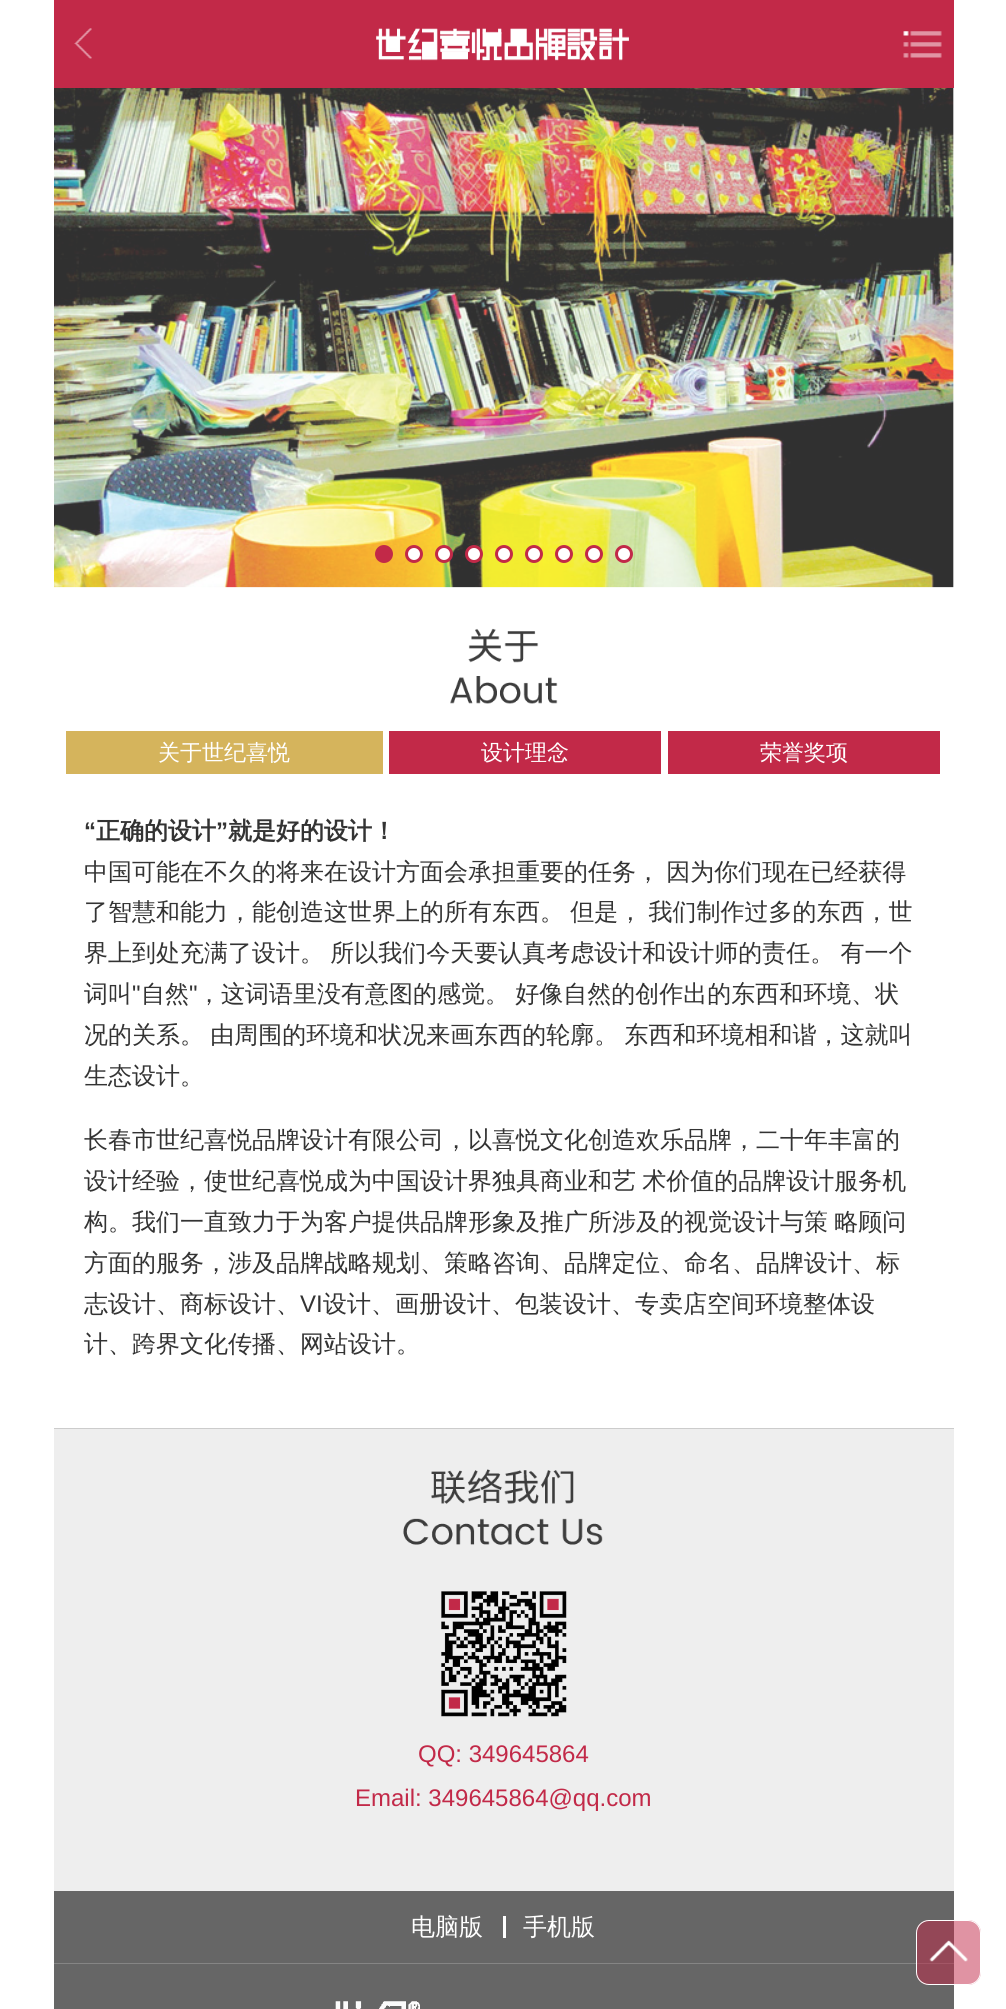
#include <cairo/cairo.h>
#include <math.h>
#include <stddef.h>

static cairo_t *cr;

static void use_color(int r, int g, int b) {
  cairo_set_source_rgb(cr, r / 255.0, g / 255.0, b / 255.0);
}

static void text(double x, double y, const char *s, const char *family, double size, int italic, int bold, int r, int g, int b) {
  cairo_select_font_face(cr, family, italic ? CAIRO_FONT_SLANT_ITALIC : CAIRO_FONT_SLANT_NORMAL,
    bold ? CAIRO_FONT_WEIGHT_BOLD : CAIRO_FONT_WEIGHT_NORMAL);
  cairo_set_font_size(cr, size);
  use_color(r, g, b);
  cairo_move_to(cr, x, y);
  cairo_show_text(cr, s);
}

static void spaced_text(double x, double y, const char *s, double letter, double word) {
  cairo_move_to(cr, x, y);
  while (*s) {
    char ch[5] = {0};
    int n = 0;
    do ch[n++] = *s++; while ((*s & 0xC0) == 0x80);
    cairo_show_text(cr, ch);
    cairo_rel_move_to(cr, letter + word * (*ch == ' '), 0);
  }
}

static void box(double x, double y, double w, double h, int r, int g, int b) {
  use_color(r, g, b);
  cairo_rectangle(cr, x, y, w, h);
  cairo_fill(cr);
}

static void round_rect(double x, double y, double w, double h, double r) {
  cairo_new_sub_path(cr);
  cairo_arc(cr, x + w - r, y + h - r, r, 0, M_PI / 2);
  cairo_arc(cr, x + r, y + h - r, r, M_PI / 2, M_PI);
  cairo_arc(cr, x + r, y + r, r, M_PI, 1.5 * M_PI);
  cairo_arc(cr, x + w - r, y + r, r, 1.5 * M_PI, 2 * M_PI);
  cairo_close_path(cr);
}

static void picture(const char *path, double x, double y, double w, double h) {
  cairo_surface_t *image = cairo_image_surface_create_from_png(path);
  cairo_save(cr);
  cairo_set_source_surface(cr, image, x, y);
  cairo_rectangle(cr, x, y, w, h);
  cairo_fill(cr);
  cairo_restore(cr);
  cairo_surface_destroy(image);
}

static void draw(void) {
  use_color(255, 255, 255);
  cairo_paint(cr);
  box(54, 0, 900, 88, 194, 41, 72);
  picture("img_01.png", 74, 28, 18, 31);
  picture("img_02.png", 376, 28, 253, 33);
  picture("img_03.png", 903, 31, 39, 27);
  picture("img_04.png", 54, 88, 900, 500);
  cairo_arc(cr, 384, 554, 7.5, 0, 2 * M_PI);
  cairo_fill_preserve(cr);
  cairo_set_line_width(cr, 3);
  cairo_stroke(cr);
  use_color(255, 255, 255);
  cairo_arc(cr, 414, 554, 7.5, 0, 2 * M_PI);
  cairo_fill_preserve(cr);
  use_color(194, 41, 72);
  cairo_stroke(cr);
  use_color(255, 255, 255);
  cairo_arc(cr, 444, 554, 7.5, 0, 2 * M_PI);
  cairo_fill_preserve(cr);
  use_color(194, 41, 72);
  cairo_stroke(cr);
  use_color(255, 255, 255);
  cairo_arc(cr, 474, 554, 7.5, 0, 2 * M_PI);
  cairo_fill_preserve(cr);
  use_color(194, 41, 72);
  cairo_stroke(cr);
  use_color(255, 255, 255);
  cairo_arc(cr, 504, 554, 7.5, 0, 2 * M_PI);
  cairo_fill_preserve(cr);
  use_color(194, 41, 72);
  cairo_stroke(cr);
  use_color(255, 255, 255);
  cairo_arc(cr, 534, 554, 7.5, 0, 2 * M_PI);
  cairo_fill_preserve(cr);
  use_color(194, 41, 72);
  cairo_stroke(cr);
  use_color(255, 255, 255);
  cairo_arc(cr, 564, 554, 7.5, 0, 2 * M_PI);
  cairo_fill_preserve(cr);
  use_color(194, 41, 72);
  cairo_stroke(cr);
  use_color(255, 255, 255);
  cairo_arc(cr, 594, 554, 7.5, 0, 2 * M_PI);
  cairo_fill_preserve(cr);
  use_color(194, 41, 72);
  cairo_stroke(cr);
  use_color(255, 255, 255);
  cairo_arc(cr, 624, 554, 7.5, 0, 2 * M_PI);
  cairo_fill_preserve(cr);
  use_color(194, 41, 72);
  cairo_stroke(cr);
  picture("img_05.png", 450, 628, 108, 76);
  box(66, 731, 317, 43, 213, 180, 92);
  box(389, 731, 272, 43, 194, 41, 72);
  box(668, 731, 272, 43, 194, 41, 72);
  box(54, 1429, 900, 462, 238, 238, 238);
  box(54, 1428, 900, 1, 204, 204, 204);
  picture("img_06.png", 403, 1469, 200, 76);
  picture("img_07.png", 441, 1591, 126, 126);
  box(54, 1891, 900, 118, 102, 102, 102);
  box(54, 1963, 900, 1, 133, 133, 133);
  box(503, 1916, 3, 22, 255, 255, 255);
  picture("img_08.png", 335, 2001, 85, 8);
  cairo_set_source_rgba(cr, 0.761, 0.161, 0.282, 0.5);
  round_rect(916, 1920, 65, 65, 13);
  cairo_fill(cr);
  picture("img_09.png", 929, 1940, 39, 22);
  round_rect(916.5, 1920.5, 64, 64, 12.5);
  use_color(255, 255, 255);
  cairo_set_line_width(cr, 1);
  cairo_stroke(cr);
  text(158, 760, "关于世纪喜悦", "WenQuanYi Zen Hei Medium", 22, 0, 0, 255, 255, 255);
  text(481, 760, "设计理念", "WenQuanYi Zen Hei Medium", 22, 0, 0, 255, 255, 255);
  text(760, 760, "荣誉奖项", "WenQuanYi Zen Hei Medium", 22, 0, 0, 255, 255, 255);
  text(84, 839, "“", "Liberation Sans", 24, 0, 1, 51, 51, 51);
  text(96, 839, "正确的设计", "WenQuanYi Zen Hei", 24, 0, 1, 51, 51, 51);
  text(216, 839, "”", "Liberation Sans", 24, 0, 1, 51, 51, 51);
  text(228, 839, "就是好的设计！", "WenQuanYi Zen Hei", 24, 0, 1, 51, 51, 51);
  cairo_select_font_face(cr, "WenQuanYi Zen Hei Medium", CAIRO_FONT_SLANT_NORMAL, CAIRO_FONT_WEIGHT_NORMAL);
  spaced_text(84, 880, "中国可能在不久的将来在设计方面会承担重要的任务， 因为你们现在已经获得", 0, -1);
  spaced_text(84, 920, "了智慧和能力，能创造这世界上的所有东西。 但是， 我们制作过多的东西，世", 0, -1);
  spaced_text(84, 961, "界上到处充满了设计。 所以我们今天要认真考虑设计和设计师的责任。 有一个", 0, -1);
  text(84, 1002, "词叫", "WenQuanYi Zen Hei Medium", 24, 0, 0, 51, 51, 51);
  text(132, 1002, "\"", "Liberation Sans", 24, 0, 0, 51, 51, 51);
  text(141, 1002, "自然", "WenQuanYi Zen Hei Medium", 24, 0, 0, 51, 51, 51);
  text(189, 1002, "\"", "Liberation Sans", 24, 0, 0, 51, 51, 51);
  cairo_select_font_face(cr, "WenQuanYi Zen Hei Medium", CAIRO_FONT_SLANT_NORMAL, CAIRO_FONT_WEIGHT_NORMAL);
  spaced_text(197, 1002, "，这词语里没有意图的感觉。 好像自然的创作出的东西和环境、状", 0, -1);
  spaced_text(84, 1043, "况的关系。 由周围的环境和状况来画东西的轮廓。 东西和环境相和谐，这就叫", 0, -1);
  text(84, 1084, "生态设计。", "WenQuanYi Zen Hei Medium", 24, 0, 0, 51, 51, 51);
  text(84, 1148, "长春市世纪喜悦品牌设计有限公司，以喜悦文化创造欢乐品牌，二十年丰富的", "WenQuanYi Zen Hei Medium", 24, 0, 0, 51, 51, 51);
  spaced_text(84, 1189, "设计经验，使世纪喜悦成为中国设计界独具商业和艺 术价值的品牌设计服务机", 0, -1);
  spaced_text(84, 1230, "构。我们一直致力于为客户提供品牌形象及推广所涉及的视觉设计与策 略顾问", 0, -1);
  text(84, 1271, "方面的服务，涉及品牌战略规划、策略咨询、品牌定位、命名、品牌设计、标", "WenQuanYi Zen Hei Medium", 24, 0, 0, 51, 51, 51);
  text(84, 1312, "志设计、商标设计、", "WenQuanYi Zen Hei Medium", 24, 0, 0, 51, 51, 51);
  text(300, 1312, "VI", "Liberation Sans", 24, 0, 0, 51, 51, 51);
  text(323, 1312, "设计、画册设计、包装设计、专卖店空间环境整体设", "WenQuanYi Zen Hei Medium", 24, 0, 0, 51, 51, 51);
  text(84, 1352, "计、跨界文化传播、网站设计。", "WenQuanYi Zen Hei Medium", 24, 0, 0, 51, 51, 51);
  text(418, 1762, "QQ: 349645864", "Liberation Sans", 24, 0, 0, 194, 41, 72);
  text(355, 1806, "Email: 349645864@qq.com", "Liberation Sans", 24, 0, 0, 194, 41, 72);
  text(411, 1935, "电脑版", "WenQuanYi Zen Hei Medium", 24, 0, 0, 255, 255, 255);
  text(523, 1935, "手机版", "WenQuanYi Zen Hei Medium", 24, 0, 0, 255, 255, 255);
}

int main(void) {
  cairo_surface_t *surface = cairo_image_surface_create(CAIRO_FORMAT_RGB24, 1006, 2009);
  cr = cairo_create(surface);
  cairo_font_options_t *options = cairo_font_options_create();
  cairo_font_options_set_hint_metrics(options, CAIRO_HINT_METRICS_OFF);
  cairo_font_options_set_hint_style(options, CAIRO_HINT_STYLE_NONE);
  cairo_set_font_options(cr, options);
  cairo_set_miter_limit(cr, 4);
  draw();
  cairo_surface_write_to_png(surface, "out.png");
  cairo_font_options_destroy(options);
  cairo_destroy(cr);
  cairo_surface_destroy(surface);
  return 0;
}
